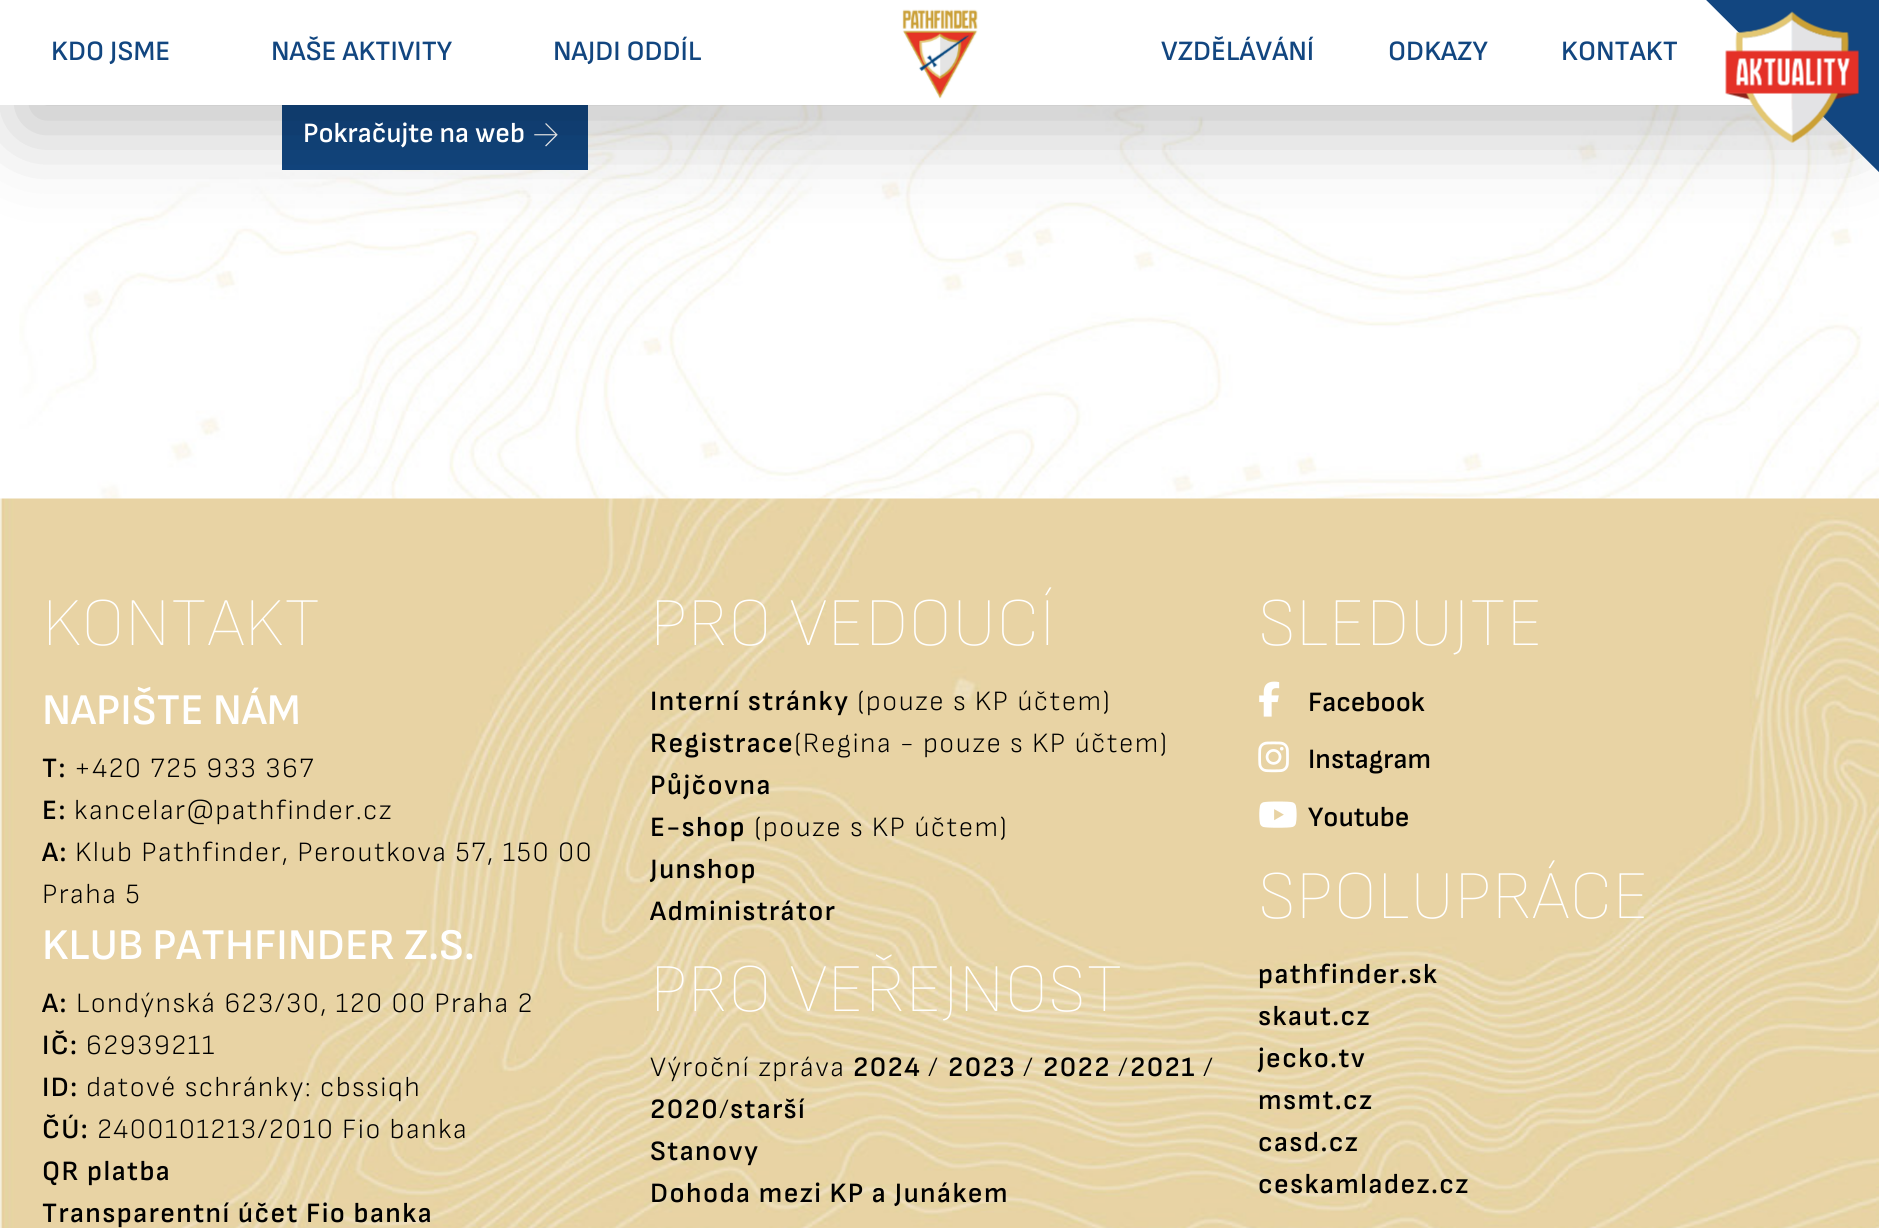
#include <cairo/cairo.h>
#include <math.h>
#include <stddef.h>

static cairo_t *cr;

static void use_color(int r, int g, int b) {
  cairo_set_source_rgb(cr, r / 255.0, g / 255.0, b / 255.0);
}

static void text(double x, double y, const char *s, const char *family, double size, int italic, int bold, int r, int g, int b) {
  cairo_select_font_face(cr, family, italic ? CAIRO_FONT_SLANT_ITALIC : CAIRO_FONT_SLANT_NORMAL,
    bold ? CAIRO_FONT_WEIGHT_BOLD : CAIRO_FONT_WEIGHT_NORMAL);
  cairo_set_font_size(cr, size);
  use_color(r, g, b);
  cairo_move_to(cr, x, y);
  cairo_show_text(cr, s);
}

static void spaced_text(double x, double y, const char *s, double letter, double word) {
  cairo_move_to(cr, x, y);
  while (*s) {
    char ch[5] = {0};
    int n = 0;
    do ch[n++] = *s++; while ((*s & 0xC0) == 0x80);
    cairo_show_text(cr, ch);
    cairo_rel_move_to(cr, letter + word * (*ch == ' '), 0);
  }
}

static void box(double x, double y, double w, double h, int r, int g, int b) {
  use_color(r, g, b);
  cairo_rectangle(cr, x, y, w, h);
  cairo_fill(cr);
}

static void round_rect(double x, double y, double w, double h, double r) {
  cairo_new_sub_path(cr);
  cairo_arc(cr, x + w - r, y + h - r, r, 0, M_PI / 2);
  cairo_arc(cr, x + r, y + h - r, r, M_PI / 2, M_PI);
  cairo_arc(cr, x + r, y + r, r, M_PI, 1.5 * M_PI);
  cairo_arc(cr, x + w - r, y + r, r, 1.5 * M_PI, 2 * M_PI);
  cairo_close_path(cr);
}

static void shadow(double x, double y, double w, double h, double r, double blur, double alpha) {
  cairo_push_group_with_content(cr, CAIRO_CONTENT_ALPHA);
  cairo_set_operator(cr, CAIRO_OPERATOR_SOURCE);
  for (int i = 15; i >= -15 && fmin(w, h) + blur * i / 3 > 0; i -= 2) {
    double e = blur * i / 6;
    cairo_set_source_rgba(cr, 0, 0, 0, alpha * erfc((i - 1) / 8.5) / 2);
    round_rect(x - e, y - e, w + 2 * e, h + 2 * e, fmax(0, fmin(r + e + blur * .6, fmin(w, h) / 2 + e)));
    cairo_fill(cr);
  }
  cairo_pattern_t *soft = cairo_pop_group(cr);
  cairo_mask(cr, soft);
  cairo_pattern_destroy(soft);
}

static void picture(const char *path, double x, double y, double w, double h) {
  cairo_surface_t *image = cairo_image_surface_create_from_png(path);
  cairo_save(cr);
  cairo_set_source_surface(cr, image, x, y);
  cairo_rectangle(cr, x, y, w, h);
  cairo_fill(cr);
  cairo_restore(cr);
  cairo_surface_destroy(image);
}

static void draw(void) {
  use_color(255, 255, 255);
  cairo_paint(cr);
  picture("img_01.png", 19, 105, 1860, 394);
  box(282, 105, 306, 65, 18, 70, 128);
  picture("img_04.png", 534, 123, 24, 24);
  use_color(0, 0, 0);
  shadow(21, 65, 1838, 63, 0, 44, 0.25);
  box(0, 0, 1761, 105, 255, 255, 255);
  picture("img_02.png", 902, 9, 76, 90);
  use_color(18, 70, 128);
  cairo_new_path(cr);
  cairo_move_to(cr, 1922, -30);
  cairo_line_to(cr, 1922, 215);
  cairo_line_to(cr, 1676, -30);
  cairo_close_path(cr);
  cairo_fill(cr);
  picture("img_03.png", 1725, 11, 134, 132);
  picture("img_05.png", 0, 498, 1879, 730);
  picture("img_06.png", 1259, 681, 21, 36);
  picture("img_07.png", 1258, 741, 31, 32);
  picture("img_08.png", 1259, 801, 38, 27);
  text(51, 60, "KDO JSME", "Sofia Sans SemiBold", 28, 0, 0, 18, 70, 128);
  text(271, 60, "NAŠE AKTIVITY", "Sofia Sans SemiBold", 28, 0, 0, 18, 70, 128);
  text(553, 60, "NAJDI ODDÍL", "Sofia Sans SemiBold", 28, 0, 0, 18, 70, 128);
  text(1161, 60, "VZDĚLÁVÁNÍ", "Sofia Sans SemiBold", 28, 0, 0, 18, 70, 128);
  text(1388, 60, "ODKAZY", "Sofia Sans SemiBold", 28, 0, 0, 18, 70, 128);
  text(1561, 60, "KONTAKT", "Sofia Sans SemiBold", 28, 0, 0, 18, 70, 128);
  text(303, 142, "Pokračujte na web", "Sofia Sans SemiBold", 28, 0, 0, 255, 255, 255);
  text(42, 645, "KONTAKT", "Sofia Sans Thin", 68.25, 0, 0, 255, 255, 255);
  text(42, 724, "NAPIŠTE NÁM", "Sofia Sans SemiBold", 43.75, 0, 0, 255, 255, 255);
  cairo_set_font_size(cr, 28);
  use_color(0, 0, 0);
  spaced_text(42, 777, "T:", 1.4, 0);
  cairo_select_font_face(cr, "Sofia Sans Light", CAIRO_FONT_SLANT_NORMAL, CAIRO_FONT_WEIGHT_NORMAL);
  spaced_text(74, 777, "+420 725 933 367", 1.4, 0);
  cairo_select_font_face(cr, "Sofia Sans SemiBold", CAIRO_FONT_SLANT_NORMAL, CAIRO_FONT_WEIGHT_NORMAL);
  spaced_text(42, 819, "E:", 1.4, 0);
  cairo_select_font_face(cr, "Sofia Sans Light", CAIRO_FONT_SLANT_NORMAL, CAIRO_FONT_WEIGHT_NORMAL);
  spaced_text(74, 819, "kancelar@pathfinder.cz", 1.4, 0);
  cairo_select_font_face(cr, "Sofia Sans SemiBold", CAIRO_FONT_SLANT_NORMAL, CAIRO_FONT_WEIGHT_NORMAL);
  spaced_text(42, 861, "A:", 1.4, 0);
  cairo_select_font_face(cr, "Sofia Sans Light", CAIRO_FONT_SLANT_NORMAL, CAIRO_FONT_WEIGHT_NORMAL);
  spaced_text(75, 861, "Klub Pathfinder, Peroutkova 57, 150 00", 1.4, 0);
  spaced_text(42, 903, "Praha 5", 1.4, 0);
  text(42, 959, "KLUB PATHFINDER Z.S.", "Sofia Sans SemiBold", 43.75, 0, 0, 255, 255, 255);
  cairo_set_font_size(cr, 28);
  use_color(0, 0, 0);
  spaced_text(42, 1012, "A:", 1.4, 0);
  cairo_select_font_face(cr, "Sofia Sans Light", CAIRO_FONT_SLANT_NORMAL, CAIRO_FONT_WEIGHT_NORMAL);
  spaced_text(76, 1012, "Londýnská 623/30, 120 00 Praha 2", 1.4, 0);
  cairo_select_font_face(cr, "Sofia Sans SemiBold", CAIRO_FONT_SLANT_NORMAL, CAIRO_FONT_WEIGHT_NORMAL);
  spaced_text(42, 1054, "IČ:", 1.4, 0);
  cairo_select_font_face(cr, "Sofia Sans Light", CAIRO_FONT_SLANT_NORMAL, CAIRO_FONT_WEIGHT_NORMAL);
  spaced_text(86, 1054, "62939211", 1.4, 0);
  cairo_select_font_face(cr, "Sofia Sans SemiBold", CAIRO_FONT_SLANT_NORMAL, CAIRO_FONT_WEIGHT_NORMAL);
  spaced_text(42, 1096, "ID:", 1.4, 0);
  cairo_select_font_face(cr, "Sofia Sans Light", CAIRO_FONT_SLANT_NORMAL, CAIRO_FONT_WEIGHT_NORMAL);
  spaced_text(86, 1096, "datové schránky: cbssiqh", 1.4, 0);
  cairo_select_font_face(cr, "Sofia Sans SemiBold", CAIRO_FONT_SLANT_NORMAL, CAIRO_FONT_WEIGHT_NORMAL);
  spaced_text(42, 1138, "ČÚ:", 1.4, 0);
  cairo_select_font_face(cr, "Sofia Sans Light", CAIRO_FONT_SLANT_NORMAL, CAIRO_FONT_WEIGHT_NORMAL);
  spaced_text(97, 1138, "2400101213/2010 Fio banka", 1.4, 0);
  cairo_select_font_face(cr, "Sofia Sans SemiBold", CAIRO_FONT_SLANT_NORMAL, CAIRO_FONT_WEIGHT_NORMAL);
  spaced_text(42, 1180, "QR platba", 1.4, 0);
  spaced_text(42, 1222, "Transparentní účet Fio banka", 1.4, 0);
  text(650, 645, "PRO VEDOUCÍ", "Sofia Sans Thin", 68.25, 0, 0, 255, 255, 255);
  cairo_select_font_face(cr, "Sofia Sans SemiBold", CAIRO_FONT_SLANT_NORMAL, CAIRO_FONT_WEIGHT_NORMAL);
  cairo_set_font_size(cr, 28);
  use_color(0, 0, 0);
  spaced_text(650, 710, "Interní stránky", 1.4, 0);
  cairo_select_font_face(cr, "Sofia Sans Light", CAIRO_FONT_SLANT_NORMAL, CAIRO_FONT_WEIGHT_NORMAL);
  spaced_text(857, 710, "(pouze s KP účtem)", 1.4, 0);
  cairo_select_font_face(cr, "Sofia Sans SemiBold", CAIRO_FONT_SLANT_NORMAL, CAIRO_FONT_WEIGHT_NORMAL);
  spaced_text(650, 752, "Registrace", 1.4, 0);
  cairo_select_font_face(cr, "Sofia Sans Light", CAIRO_FONT_SLANT_NORMAL, CAIRO_FONT_WEIGHT_NORMAL);
  spaced_text(794, 752, "(Regina - pouze s KP účtem)", 1.4, 0);
  cairo_select_font_face(cr, "Sofia Sans SemiBold", CAIRO_FONT_SLANT_NORMAL, CAIRO_FONT_WEIGHT_NORMAL);
  spaced_text(650, 794, "Půjčovna", 1.4, 0);
  spaced_text(650, 836, "E-shop", 1.4, 0);
  cairo_select_font_face(cr, "Sofia Sans Light", CAIRO_FONT_SLANT_NORMAL, CAIRO_FONT_WEIGHT_NORMAL);
  spaced_text(754, 836, "(pouze s KP účtem)", 1.4, 0);
  cairo_select_font_face(cr, "Sofia Sans SemiBold", CAIRO_FONT_SLANT_NORMAL, CAIRO_FONT_WEIGHT_NORMAL);
  spaced_text(650, 878, "Junshop", 1.4, 0);
  spaced_text(650, 920, "Administrátor", 1.4, 0);
  text(650, 1011, "PRO VEŘEJNOST", "Sofia Sans Thin", 68.25, 0, 0, 255, 255, 255);
  cairo_select_font_face(cr, "Sofia Sans Light", CAIRO_FONT_SLANT_NORMAL, CAIRO_FONT_WEIGHT_NORMAL);
  cairo_set_font_size(cr, 28);
  use_color(0, 0, 0);
  spaced_text(650, 1076, "Výroční zpráva", 1.4, 0);
  cairo_select_font_face(cr, "Sofia Sans SemiBold", CAIRO_FONT_SLANT_NORMAL, CAIRO_FONT_WEIGHT_NORMAL);
  spaced_text(853, 1076, "2024", 1.4, 0);
  cairo_select_font_face(cr, "Sofia Sans Light", CAIRO_FONT_SLANT_NORMAL, CAIRO_FONT_WEIGHT_NORMAL);
  spaced_text(928, 1076, "/", 1.4, 0);
  cairo_select_font_face(cr, "Sofia Sans SemiBold", CAIRO_FONT_SLANT_NORMAL, CAIRO_FONT_WEIGHT_NORMAL);
  spaced_text(948, 1076, "2023", 1.4, 0);
  cairo_select_font_face(cr, "Sofia Sans Light", CAIRO_FONT_SLANT_NORMAL, CAIRO_FONT_WEIGHT_NORMAL);
  spaced_text(1023, 1076, "/", 1.4, 0);
  cairo_select_font_face(cr, "Sofia Sans SemiBold", CAIRO_FONT_SLANT_NORMAL, CAIRO_FONT_WEIGHT_NORMAL);
  spaced_text(1043, 1076, "2022", 1.4, 0);
  cairo_select_font_face(cr, "Sofia Sans Light", CAIRO_FONT_SLANT_NORMAL, CAIRO_FONT_WEIGHT_NORMAL);
  spaced_text(1118, 1076, "/", 1.4, 0);
  cairo_select_font_face(cr, "Sofia Sans SemiBold", CAIRO_FONT_SLANT_NORMAL, CAIRO_FONT_WEIGHT_NORMAL);
  spaced_text(1130, 1076, "2021", 1.4, 0);
  cairo_select_font_face(cr, "Sofia Sans Light", CAIRO_FONT_SLANT_NORMAL, CAIRO_FONT_WEIGHT_NORMAL);
  spaced_text(1203, 1076, "/", 1.4, 0);
  cairo_select_font_face(cr, "Sofia Sans SemiBold", CAIRO_FONT_SLANT_NORMAL, CAIRO_FONT_WEIGHT_NORMAL);
  spaced_text(650, 1118, "2020", 1.4, 0);
  cairo_select_font_face(cr, "Sofia Sans Light", CAIRO_FONT_SLANT_NORMAL, CAIRO_FONT_WEIGHT_NORMAL);
  spaced_text(719, 1118, "/", 1.4, 0);
  cairo_select_font_face(cr, "Sofia Sans SemiBold", CAIRO_FONT_SLANT_NORMAL, CAIRO_FONT_WEIGHT_NORMAL);
  spaced_text(730, 1118, "starší", 1.4, 0);
  spaced_text(650, 1160, "Stanovy", 1.4, 0);
  spaced_text(650, 1202, "Dohoda mezi KP a Junákem", 1.4, 0);
  text(1258, 645, "SLEDUJTE", "Sofia Sans Thin", 68.25, 0, 0, 255, 255, 255);
  text(1308, 711, "Facebook", "Sofia Sans SemiBold", 28, 0, 0, 0, 0, 0);
  text(1308, 768, "Instagram", "Sofia Sans SemiBold", 28, 0, 0, 0, 0, 0);
  text(1308, 826, "Youtube", "Sofia Sans SemiBold", 28, 0, 0, 0, 0, 0);
  text(1258, 918, "SPOLUPRÁCE", "Sofia Sans Thin", 68.25, 0, 0, 255, 255, 255);
  cairo_select_font_face(cr, "Sofia Sans SemiBold", CAIRO_FONT_SLANT_NORMAL, CAIRO_FONT_WEIGHT_NORMAL);
  cairo_set_font_size(cr, 28);
  use_color(0, 0, 0);
  spaced_text(1258, 983, "pathfinder.sk", 1.4, 0);
  spaced_text(1258, 1025, "skaut.cz", 1.4, 0);
  spaced_text(1258, 1067, "jecko.tv", 1.4, 0);
  spaced_text(1258, 1109, "msmt.cz", 1.4, 0);
  spaced_text(1258, 1151, "casd.cz", 1.4, 0);
  spaced_text(1258, 1193, "ceskamladez.cz", 1.4, 0);
}

int main(void) {
  cairo_surface_t *surface = cairo_image_surface_create(CAIRO_FORMAT_RGB24, 1879, 1228);
  cr = cairo_create(surface);
  cairo_font_options_t *options = cairo_font_options_create();
  cairo_font_options_set_hint_metrics(options, CAIRO_HINT_METRICS_OFF);
  cairo_font_options_set_hint_style(options, CAIRO_HINT_STYLE_NONE);
  cairo_set_font_options(cr, options);
  cairo_set_miter_limit(cr, 4);
  draw();
  cairo_surface_write_to_png(surface, "out.png");
  cairo_font_options_destroy(options);
  cairo_destroy(cr);
  cairo_surface_destroy(surface);
  return 0;
}
